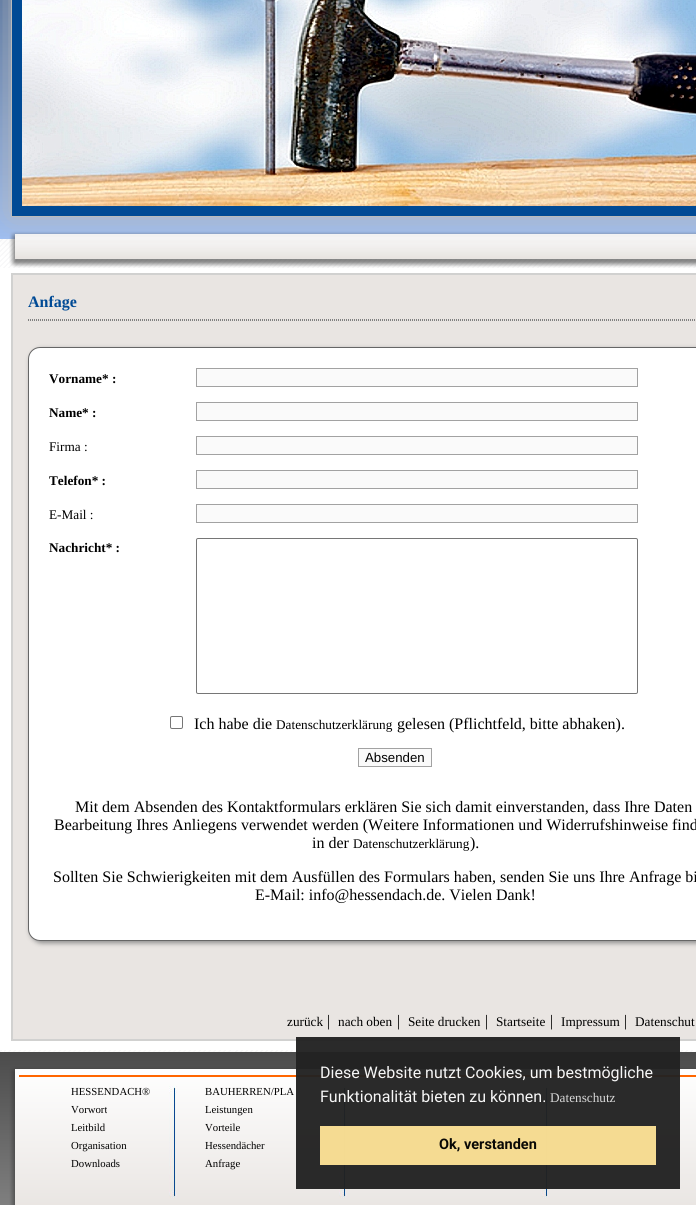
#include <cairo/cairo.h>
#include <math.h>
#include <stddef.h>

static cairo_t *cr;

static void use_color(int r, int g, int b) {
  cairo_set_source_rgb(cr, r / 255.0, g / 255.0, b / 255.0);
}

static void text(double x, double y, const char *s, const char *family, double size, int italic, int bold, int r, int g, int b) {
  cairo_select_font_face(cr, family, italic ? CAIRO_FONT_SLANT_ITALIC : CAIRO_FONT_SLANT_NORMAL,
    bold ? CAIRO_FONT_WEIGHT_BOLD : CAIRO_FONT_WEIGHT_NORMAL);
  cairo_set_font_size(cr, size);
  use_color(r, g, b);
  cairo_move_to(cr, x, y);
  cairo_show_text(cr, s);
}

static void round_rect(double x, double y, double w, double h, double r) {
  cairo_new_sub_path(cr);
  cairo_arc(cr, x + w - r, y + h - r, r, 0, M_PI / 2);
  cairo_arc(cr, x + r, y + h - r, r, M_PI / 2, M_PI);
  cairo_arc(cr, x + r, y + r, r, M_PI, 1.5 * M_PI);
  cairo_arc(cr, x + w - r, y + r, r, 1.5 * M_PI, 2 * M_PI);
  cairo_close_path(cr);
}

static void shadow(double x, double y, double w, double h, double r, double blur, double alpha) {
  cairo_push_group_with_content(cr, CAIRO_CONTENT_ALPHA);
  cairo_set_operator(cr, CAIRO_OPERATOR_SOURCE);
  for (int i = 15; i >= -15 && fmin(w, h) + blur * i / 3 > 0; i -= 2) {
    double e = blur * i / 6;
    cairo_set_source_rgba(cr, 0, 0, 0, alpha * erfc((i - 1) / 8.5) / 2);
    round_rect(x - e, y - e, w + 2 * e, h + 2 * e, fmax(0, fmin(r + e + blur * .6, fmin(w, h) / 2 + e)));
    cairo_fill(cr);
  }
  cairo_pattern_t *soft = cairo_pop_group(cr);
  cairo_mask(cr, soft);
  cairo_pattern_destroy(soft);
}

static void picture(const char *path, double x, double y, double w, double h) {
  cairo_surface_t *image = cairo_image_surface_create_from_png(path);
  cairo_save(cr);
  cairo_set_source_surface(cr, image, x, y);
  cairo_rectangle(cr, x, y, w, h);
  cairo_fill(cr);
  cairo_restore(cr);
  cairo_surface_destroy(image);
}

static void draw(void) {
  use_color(255, 255, 255);
  cairo_paint(cr);
  picture("img_01.png", 4, 0, 692, 268);
  picture("img_03.png", 0, 0, 4, 268);
  use_color(187, 187, 187);
  shadow(11, -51, 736, 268, 0, 17, 1);
  use_color(0, 74, 149);
  cairo_rectangle(cr, 11.5, -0.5, 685, 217);
  cairo_fill_preserve(cr);
  use_color(187, 187, 187);
  cairo_set_line_width(cr, 1);
  cairo_stroke(cr);
  picture("img_02.png", 22, 0, 674, 206);
  picture("img_04.png", 11, 273, 685, 15);
  picture("img_05.png", 11, 288, 685, 742);
  cairo_new_path(cr);
  cairo_move_to(cr, 28, 319.5);
  cairo_line_to(cr, 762, 319.5);
  use_color(128, 128, 128);
  cairo_set_dash(cr, (double[]){1, 1}, 2, 0);
  cairo_stroke(cr);
  cairo_new_path(cr);
  cairo_move_to(cr, 28, 320.5);
  cairo_line_to(cr, 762, 320.5);
  cairo_stroke(cr);
  use_color(136, 136, 136);
  shadow(30, 349, 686, 594, 12, 2.5, 1);
  use_color(255, 255, 255);
  round_rect(28.5, 347.5, 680, 593, 11.5);
  cairo_fill_preserve(cr);
  use_color(102, 102, 102);
  cairo_set_dash(cr, NULL, 0, 0);
  cairo_stroke(cr);
  use_color(250, 250, 250);
  cairo_rectangle(cr, 196.5, 368.5, 441, 18);
  cairo_fill_preserve(cr);
  use_color(162, 162, 162);
  cairo_stroke(cr);
  use_color(250, 250, 250);
  cairo_rectangle(cr, 196.5, 402.5, 441, 18);
  cairo_fill_preserve(cr);
  use_color(162, 162, 162);
  cairo_stroke(cr);
  use_color(250, 250, 250);
  cairo_rectangle(cr, 196.5, 436.5, 441, 18);
  cairo_fill_preserve(cr);
  use_color(162, 162, 162);
  cairo_stroke(cr);
  use_color(250, 250, 250);
  cairo_rectangle(cr, 196.5, 470.5, 441, 18);
  cairo_fill_preserve(cr);
  use_color(162, 162, 162);
  cairo_stroke(cr);
  use_color(250, 250, 250);
  cairo_rectangle(cr, 196.5, 504.5, 441, 18);
  cairo_fill_preserve(cr);
  use_color(162, 162, 162);
  cairo_stroke(cr);
  round_rect(196.5, 538.5, 441, 155, 1.5);
  use_color(118, 118, 118);
  cairo_stroke(cr);
  round_rect(170.5, 716.5, 12, 12, 1.5);
  cairo_stroke(cr);
  use_color(250, 250, 250);
  cairo_rectangle(cr, 358.5, 748.5, 73, 18);
  cairo_fill_preserve(cr);
  use_color(162, 162, 162);
  cairo_stroke(cr);
  picture("img_06.png", 11, 1030, 685, 11);
  picture("img_07.png", 0, 1050, 4, 155);
  picture("img_08.png", 4, 1050, 692, 155);
  picture("img_09.png", 169, 1086, 8, 112);
  picture("img_09.png", 339, 1086, 8, 112);
  picture("img_09.png", 541, 1086, 8, 112);
  cairo_set_source_rgba(cr, 0.133, 0.133, 0.133, 0.96);
  cairo_rectangle(cr, 296, 1037, 384, 152);
  cairo_fill(cr);
  cairo_set_source_rgba(cr, 0.992, 0.886, 0.588, 0.96);
  cairo_rectangle(cr, 320, 1126, 336, 39);
  cairo_fill(cr);
  text(28, 307, "Anfage", "Liberation Serif", 16, 0, 1, 0, 74, 149);
  text(49, 383, "Vorname* :", "Liberation Serif", 13.25, 0, 1, 0, 0, 0);
  text(49, 417, "Name* :", "Liberation Serif", 13.25, 0, 1, 0, 0, 0);
  text(49, 451, "Firma :", "Liberation Serif", 13.25, 0, 0, 0, 0, 0);
  text(49, 485, "Telefon* :", "Liberation Serif", 13.25, 0, 1, 0, 0, 0);
  text(49, 519, "E-Mail :", "Liberation Serif", 13.25, 0, 0, 0, 0, 0);
  text(49, 552, "Nachricht* :", "Liberation Serif", 13.25, 0, 1, 0, 0, 0);
  text(194, 729, "Ich habe die", "Liberation Serif", 16, 0, 0, 0, 0, 0);
  text(276, 729, "Datenschutzerklärung", "Liberation Serif", 13.25, 0, 0, 0, 0, 0);
  text(397, 729, "gelesen (Pflichtfeld, bitte abhaken).", "Liberation Serif", 16, 0, 0, 0, 0, 0);
  text(365, 762, "Absenden", "Liberation Sans", 13.25, 0, 0, 0, 0, 0);
  text(75, 812, "Mit dem Absenden des Kontaktformulars erklären Sie sich damit einverstanden, dass Ihre Daten", "Liberation Serif", 16, 0, 0, 0, 0, 0);
  text(54, 830, "Bearbeitung Ihres Anliegens verwendet werden (Weitere Informationen und Widerrufshinweise find", "Liberation Serif", 16, 0, 0, 0, 0, 0);
  text(312, 848, "in der", "Liberation Serif", 16, 0, 0, 0, 0, 0);
  text(353, 848, "Datenschutzerklärung", "Liberation Serif", 13.25, 0, 0, 0, 0, 0);
  text(470, 848, ").", "Liberation Serif", 16, 0, 0, 0, 0, 0);
  text(53, 882, "Sollten Sie Schwierigkeiten mit dem Ausfüllen des Formulars haben, senden Sie uns Ihre Anfrage bi", "Liberation Serif", 16, 0, 0, 0, 0, 0);
  text(255, 900, "E-Mail: info@hessendach.de. Vielen Dank!", "Liberation Serif", 16, 0, 0, 0, 0, 0);
  text(287, 1026, "zurück", "Liberation Serif", 13.25, 0, 0, 0, 0, 0);
  text(327, 1026, "|", "Liberation Serif", 16, 0, 0, 0, 0, 0);
  text(338, 1026, "nach oben", "Liberation Serif", 13.25, 0, 0, 0, 0, 0);
  text(397, 1026, "|", "Liberation Serif", 16, 0, 0, 0, 0, 0);
  text(408, 1026, "Seite drucken", "Liberation Serif", 13.25, 0, 0, 0, 0, 0);
  text(485, 1026, "|", "Liberation Serif", 16, 0, 0, 0, 0, 0);
  text(496, 1026, "Startseite", "Liberation Serif", 13.25, 0, 0, 0, 0, 0);
  text(550, 1026, "|", "Liberation Serif", 16, 0, 0, 0, 0, 0);
  text(561, 1026, "Impressum", "Liberation Serif", 13.25, 0, 0, 0, 0, 0);
  text(624, 1026, "|", "Liberation Serif", 16, 0, 0, 0, 0, 0);
  text(635, 1026, "Datenschut", "Liberation Serif", 13.25, 0, 0, 0, 0, 0);
  text(71, 1095, "HESSENDACH®", "Liberation Serif", 10.75, 0, 0, 0, 0, 0);
  text(71, 1113, "Vorwort", "Liberation Serif", 10.75, 0, 0, 0, 0, 0);
  text(71, 1131, "Leitbild", "Liberation Serif", 10.75, 0, 0, 0, 0, 0);
  text(71, 1149, "Organisation", "Liberation Serif", 10.75, 0, 0, 0, 0, 0);
  text(71, 1167, "Downloads", "Liberation Serif", 10.75, 0, 0, 0, 0, 0);
  text(205, 1095, "BAUHERREN/PLA", "Liberation Serif", 10.75, 0, 0, 0, 0, 0);
  text(205, 1113, "Leistungen", "Liberation Serif", 10.75, 0, 0, 0, 0, 0);
  text(205, 1131, "Vorteile", "Liberation Serif", 10.75, 0, 0, 0, 0, 0);
  text(205, 1149, "Hessendächer", "Liberation Serif", 10.75, 0, 0, 0, 0, 0);
  text(205, 1167, "Anfrage", "Liberation Serif", 10.75, 0, 0, 0, 0, 0);
  text(320, 1078, "Diese Website nutzt Cookies, um bestmögliche", "Roboto", 16, 0, 0, 246, 246, 246);
  text(320, 1102, "Funktionalität bieten zu können.", "Roboto", 16, 0, 0, 246, 246, 246);
  text(550, 1102, "Datenschutz", "Liberation Serif", 13.25, 0, 0, 216, 216, 216);
  text(439, 1149, "Ok, verstanden", "Roboto", 14.5, 0, 1, 10, 9, 6);
}

int main(void) {
  cairo_surface_t *surface = cairo_image_surface_create(CAIRO_FORMAT_RGB24, 696, 1205);
  cr = cairo_create(surface);
  cairo_font_options_t *options = cairo_font_options_create();
  cairo_font_options_set_hint_metrics(options, CAIRO_HINT_METRICS_OFF);
  cairo_font_options_set_hint_style(options, CAIRO_HINT_STYLE_NONE);
  cairo_set_font_options(cr, options);
  cairo_set_miter_limit(cr, 4);
  draw();
  cairo_surface_write_to_png(surface, "out.png");
  cairo_font_options_destroy(options);
  cairo_destroy(cr);
  cairo_surface_destroy(surface);
  return 0;
}
